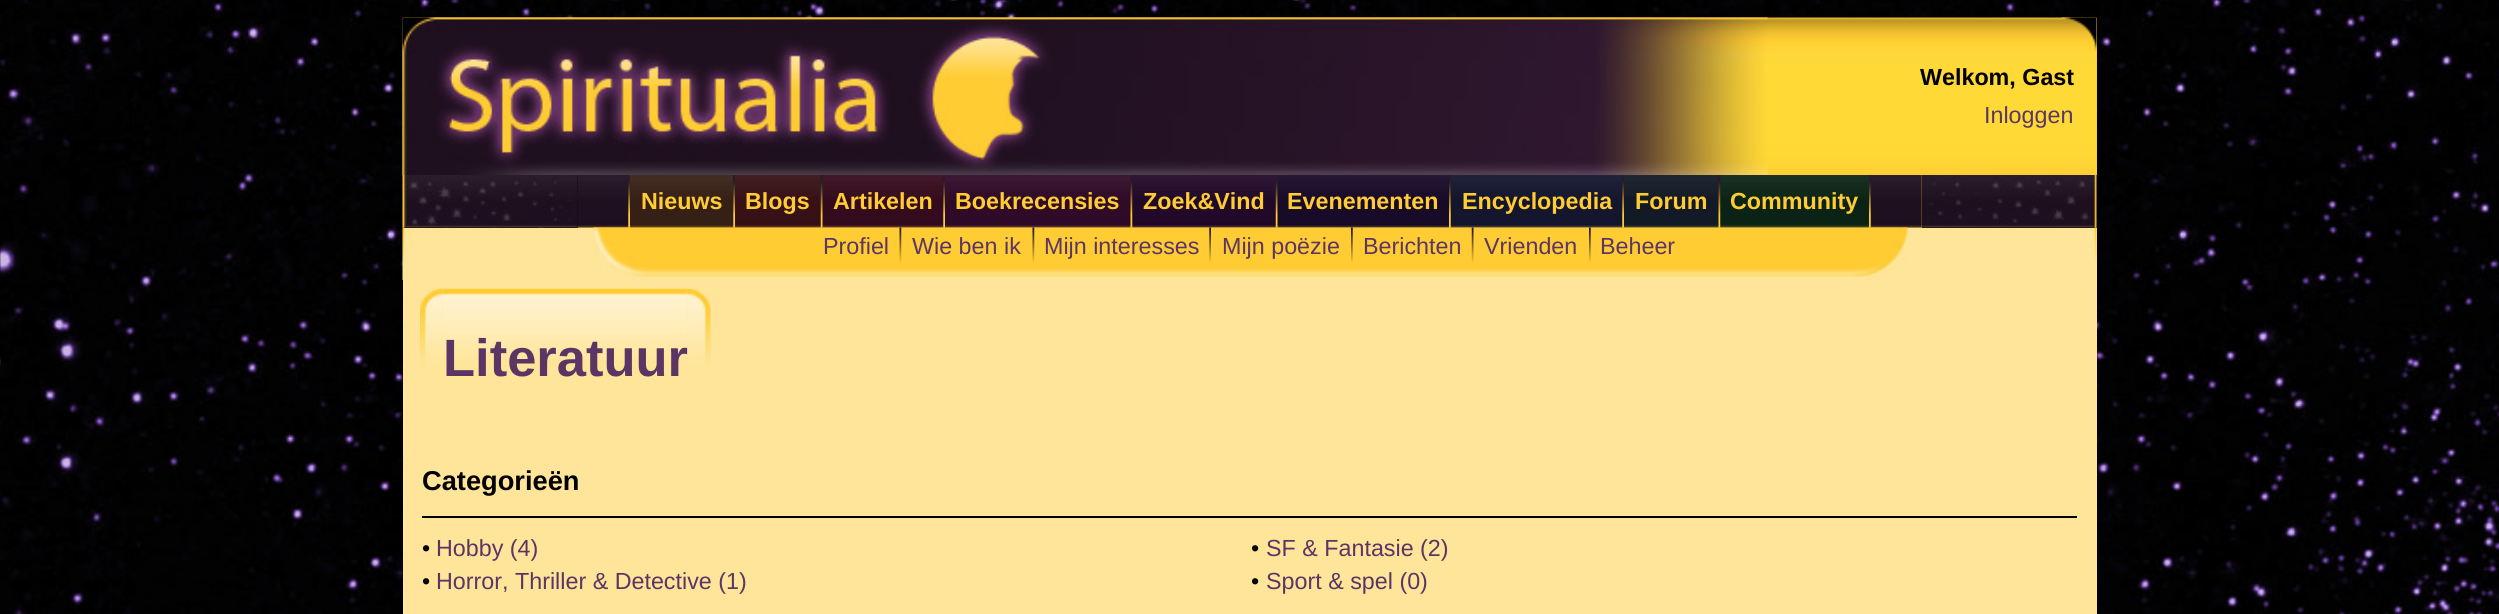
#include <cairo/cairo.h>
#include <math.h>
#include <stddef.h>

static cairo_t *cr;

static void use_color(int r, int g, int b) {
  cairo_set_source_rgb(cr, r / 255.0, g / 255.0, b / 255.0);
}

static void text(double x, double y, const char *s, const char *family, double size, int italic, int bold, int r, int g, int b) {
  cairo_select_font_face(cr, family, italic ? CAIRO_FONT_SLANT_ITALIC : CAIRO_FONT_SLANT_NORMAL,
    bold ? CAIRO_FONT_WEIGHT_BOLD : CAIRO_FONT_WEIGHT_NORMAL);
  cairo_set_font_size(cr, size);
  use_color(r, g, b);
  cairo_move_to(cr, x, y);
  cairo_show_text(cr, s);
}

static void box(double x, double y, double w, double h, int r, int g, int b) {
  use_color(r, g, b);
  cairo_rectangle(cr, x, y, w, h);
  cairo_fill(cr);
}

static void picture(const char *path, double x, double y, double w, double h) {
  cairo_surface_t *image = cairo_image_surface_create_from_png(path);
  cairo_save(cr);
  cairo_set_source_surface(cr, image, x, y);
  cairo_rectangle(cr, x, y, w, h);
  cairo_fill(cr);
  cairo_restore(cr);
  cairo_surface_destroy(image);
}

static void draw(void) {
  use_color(255, 255, 255);
  cairo_paint(cr);
  picture("img_01.png", 0, 0, 2499, 614);
  box(2096, 18, 1, 157, 255, 204, 51);
  picture("img_02.png", 402, 17, 1695, 158);
  picture("img_03.png", 402, 17, 1366, 158);
  picture("img_04.png", 2061, 17, 36, 35);
  picture("img_05.png", 402, 175, 176, 53);
  box(578, 175, 1344, 53, 255, 204, 51);
  picture("img_06.png", 577, 175, 1345, 53);
  picture("img_08.png", 630, 175, 104, 53);
  picture("img_10.png", 735, 175, 86, 53);
  picture("img_12.png", 822, 175, 122, 53);
  picture("img_14.png", 945, 175, 186, 53);
  picture("img_16.png", 1132, 175, 144, 53);
  picture("img_18.png", 1277, 175, 172, 53);
  picture("img_20.png", 1450, 175, 173, 53);
  picture("img_22.png", 1624, 175, 95, 53);
  picture("img_24.png", 1720, 175, 149, 53);
  box(404, 228, 1693, 52, 255, 229, 153);
  picture("img_28.png", 593, 227, 1315, 53);
  picture("img_07.png", 628, 182, 2, 46);
  picture("img_09.png", 733, 175, 2, 53);
  picture("img_11.png", 820, 175, 3, 53);
  picture("img_13.png", 943, 175, 2, 53);
  picture("img_15.png", 1130, 175, 3, 53);
  picture("img_17.png", 1275, 175, 3, 53);
  picture("img_19.png", 1449, 175, 2, 53);
  picture("img_21.png", 1622, 175, 2, 53);
  picture("img_23.png", 1718, 179, 3, 49);
  picture("img_25.png", 1869, 182, 2, 46);
  picture("img_26.png", 1921, 175, 176, 53);
  picture("img_27.png", 402, 227, 3, 53);
  picture("img_29.png", 899, 227, 3, 36);
  picture("img_30.png", 1032, 227, 3, 36);
  picture("img_31.png", 1209, 227, 2, 36);
  picture("img_32.png", 1351, 227, 2, 36);
  picture("img_33.png", 1471, 227, 3, 36);
  picture("img_34.png", 1589, 227, 2, 36);
  picture("img_35.png", 2094, 227, 3, 35);
  box(403, 280, 1694, 334, 255, 229, 153);
  picture("img_36.png", 420, 288, 23, 81);
  picture("img_37.png", 442, 288, 246, 72);
  picture("img_38.png", 687, 288, 24, 81);
  box(422, 516, 1655, 2, 0, 0, 0);
  text(1920, 85, "Welkom, Gast", "Liberation Sans", 23.3, 0, 1, 0, 0, 0);
  text(1984, 123, "Inloggen", "Liberation Sans", 23.3, 0, 0, 91, 54, 100);
  text(641, 209, "Nieuws", "Liberation Sans", 23.3, 0, 1, 255, 204, 51);
  text(745, 209, "Blogs", "Liberation Sans", 23.3, 0, 1, 255, 204, 51);
  text(833, 209, "Artikelen", "Liberation Sans", 23.3, 0, 1, 255, 204, 51);
  text(955, 209, "Boekrecensies", "Liberation Sans", 23.3, 0, 1, 255, 204, 51);
  text(1143, 209, "Zoek&Vind", "Liberation Sans", 23.3, 0, 1, 255, 204, 51);
  text(1287, 209, "Evenementen", "Liberation Sans", 23.3, 0, 1, 255, 204, 51);
  text(1462, 209, "Encyclopedia", "Liberation Sans", 23.3, 0, 1, 255, 204, 51);
  text(1635, 209, "Forum", "Liberation Sans", 23.3, 0, 1, 255, 204, 51);
  text(1730, 209, "Community", "Liberation Sans", 23.3, 0, 1, 255, 204, 51);
  text(823, 254, "Profiel", "Liberation Sans", 23.3, 0, 0, 91, 54, 100);
  text(912, 254, "Wie ben ik", "Liberation Sans", 23.3, 0, 0, 91, 54, 100);
  text(1044, 254, "Mijn interesses", "Liberation Sans", 23.3, 0, 0, 91, 54, 100);
  text(1222, 254, "Mijn poëzie", "Liberation Sans", 23.3, 0, 0, 91, 54, 100);
  text(1363, 254, "Berichten", "Liberation Sans", 23.3, 0, 0, 91, 54, 100);
  text(1484, 254, "Vrienden", "Liberation Sans", 23.3, 0, 0, 91, 54, 100);
  text(1600, 254, "Beheer", "Liberation Sans", 23.3, 0, 0, 91, 54, 100);
  text(443, 376, "Literatuur", "Liberation Sans", 52.5, 0, 1, 91, 54, 100);
  text(422, 490, "Categorieën", "Liberation Sans", 27.25, 0, 1, 0, 0, 0);
  text(422, 556, "•", "Liberation Sans", 23.3, 0, 0, 0, 0, 0);
  text(436, 556, "Hobby (4)", "Liberation Sans", 23.3, 0, 0, 91, 54, 100);
  text(1251, 556, "•", "Liberation Sans", 23.3, 0, 0, 0, 0, 0);
  text(1266, 556, "SF & Fantasie (2)", "Liberation Sans", 23.3, 0, 0, 91, 54, 100);
  text(422, 589, "•", "Liberation Sans", 23.3, 0, 0, 0, 0, 0);
  text(436, 589, "Horror, Thriller & Detective (1)", "Liberation Sans", 23.3, 0, 0, 91, 54, 100);
  text(1251, 589, "•", "Liberation Sans", 23.3, 0, 0, 0, 0, 0);
  text(1266, 589, "Sport & spel (0)", "Liberation Sans", 23.3, 0, 0, 91, 54, 100);
}

int main(void) {
  cairo_surface_t *surface = cairo_image_surface_create(CAIRO_FORMAT_RGB24, 2499, 614);
  cr = cairo_create(surface);
  cairo_font_options_t *options = cairo_font_options_create();
  cairo_font_options_set_hint_metrics(options, CAIRO_HINT_METRICS_OFF);
  cairo_font_options_set_hint_style(options, CAIRO_HINT_STYLE_NONE);
  cairo_set_font_options(cr, options);
  cairo_set_miter_limit(cr, 4);
  draw();
  cairo_surface_write_to_png(surface, "out.png");
  cairo_font_options_destroy(options);
  cairo_destroy(cr);
  cairo_surface_destroy(surface);
  return 0;
}
